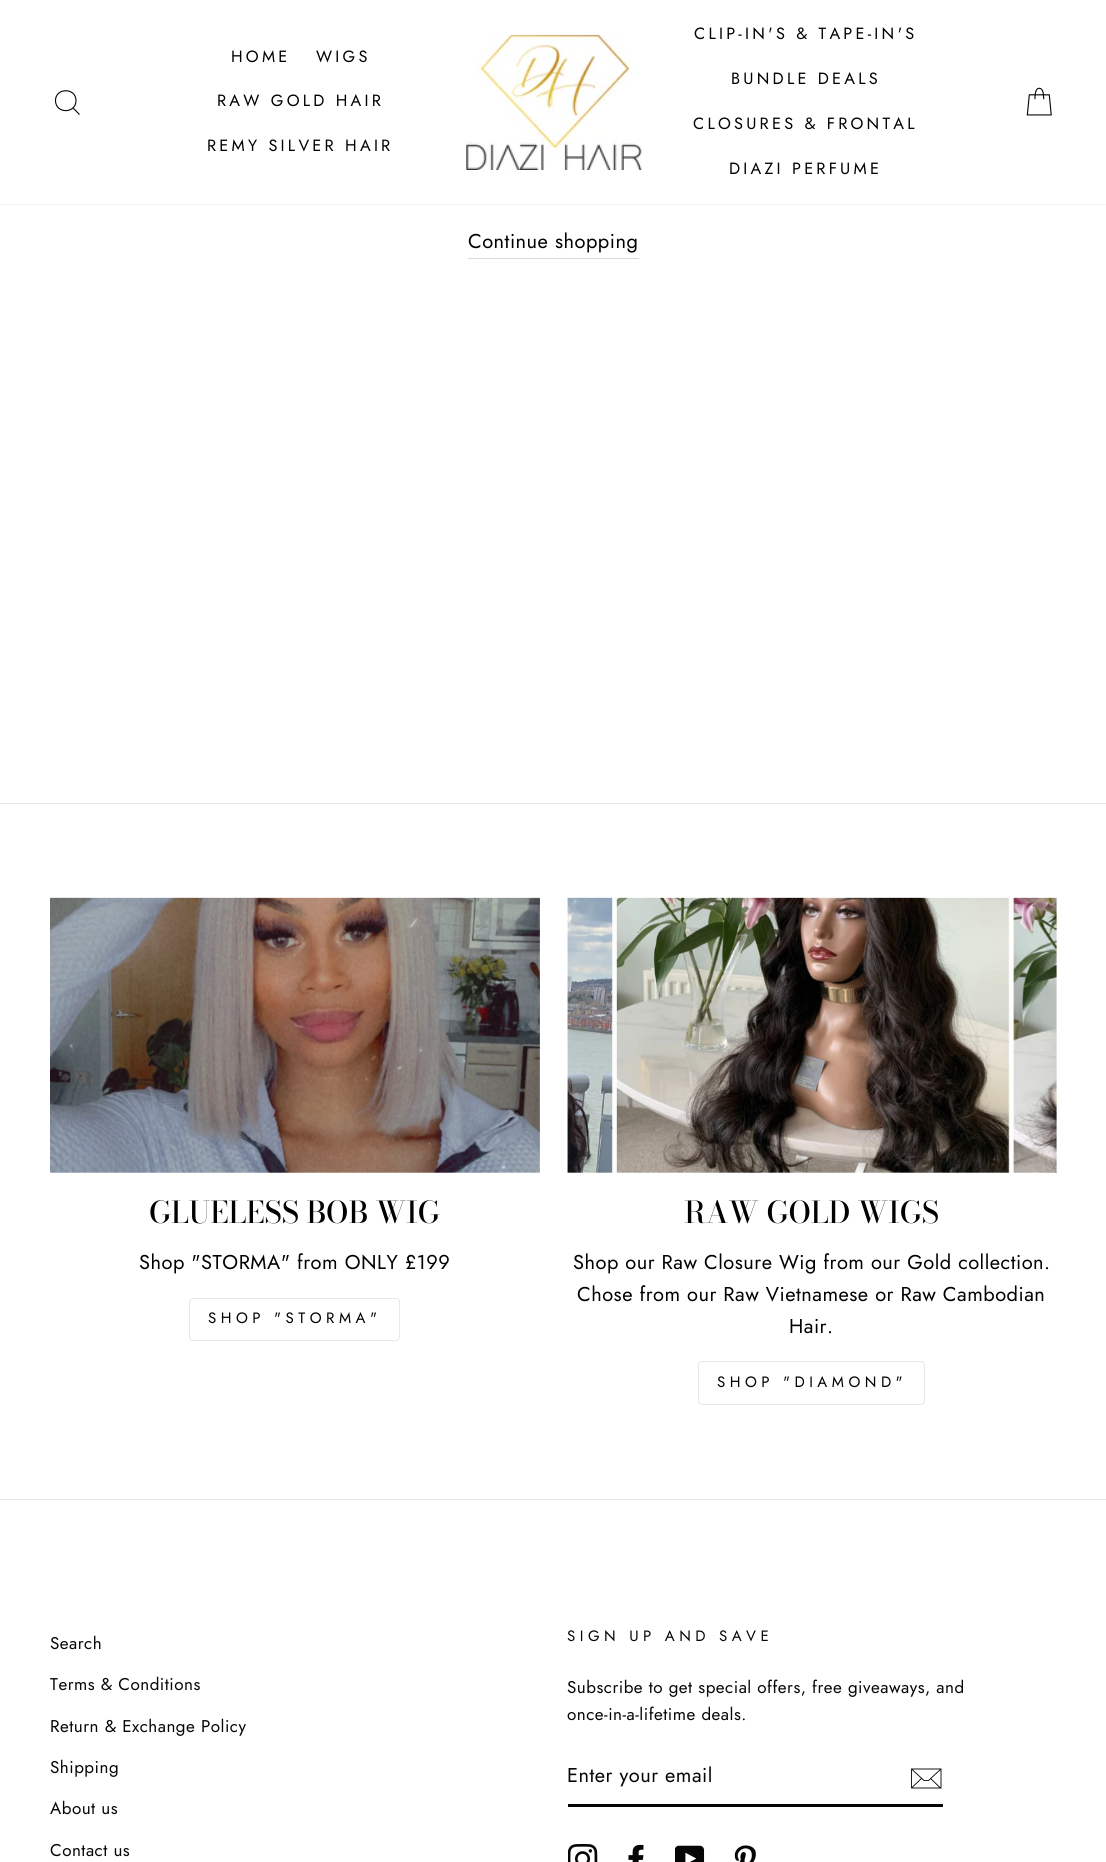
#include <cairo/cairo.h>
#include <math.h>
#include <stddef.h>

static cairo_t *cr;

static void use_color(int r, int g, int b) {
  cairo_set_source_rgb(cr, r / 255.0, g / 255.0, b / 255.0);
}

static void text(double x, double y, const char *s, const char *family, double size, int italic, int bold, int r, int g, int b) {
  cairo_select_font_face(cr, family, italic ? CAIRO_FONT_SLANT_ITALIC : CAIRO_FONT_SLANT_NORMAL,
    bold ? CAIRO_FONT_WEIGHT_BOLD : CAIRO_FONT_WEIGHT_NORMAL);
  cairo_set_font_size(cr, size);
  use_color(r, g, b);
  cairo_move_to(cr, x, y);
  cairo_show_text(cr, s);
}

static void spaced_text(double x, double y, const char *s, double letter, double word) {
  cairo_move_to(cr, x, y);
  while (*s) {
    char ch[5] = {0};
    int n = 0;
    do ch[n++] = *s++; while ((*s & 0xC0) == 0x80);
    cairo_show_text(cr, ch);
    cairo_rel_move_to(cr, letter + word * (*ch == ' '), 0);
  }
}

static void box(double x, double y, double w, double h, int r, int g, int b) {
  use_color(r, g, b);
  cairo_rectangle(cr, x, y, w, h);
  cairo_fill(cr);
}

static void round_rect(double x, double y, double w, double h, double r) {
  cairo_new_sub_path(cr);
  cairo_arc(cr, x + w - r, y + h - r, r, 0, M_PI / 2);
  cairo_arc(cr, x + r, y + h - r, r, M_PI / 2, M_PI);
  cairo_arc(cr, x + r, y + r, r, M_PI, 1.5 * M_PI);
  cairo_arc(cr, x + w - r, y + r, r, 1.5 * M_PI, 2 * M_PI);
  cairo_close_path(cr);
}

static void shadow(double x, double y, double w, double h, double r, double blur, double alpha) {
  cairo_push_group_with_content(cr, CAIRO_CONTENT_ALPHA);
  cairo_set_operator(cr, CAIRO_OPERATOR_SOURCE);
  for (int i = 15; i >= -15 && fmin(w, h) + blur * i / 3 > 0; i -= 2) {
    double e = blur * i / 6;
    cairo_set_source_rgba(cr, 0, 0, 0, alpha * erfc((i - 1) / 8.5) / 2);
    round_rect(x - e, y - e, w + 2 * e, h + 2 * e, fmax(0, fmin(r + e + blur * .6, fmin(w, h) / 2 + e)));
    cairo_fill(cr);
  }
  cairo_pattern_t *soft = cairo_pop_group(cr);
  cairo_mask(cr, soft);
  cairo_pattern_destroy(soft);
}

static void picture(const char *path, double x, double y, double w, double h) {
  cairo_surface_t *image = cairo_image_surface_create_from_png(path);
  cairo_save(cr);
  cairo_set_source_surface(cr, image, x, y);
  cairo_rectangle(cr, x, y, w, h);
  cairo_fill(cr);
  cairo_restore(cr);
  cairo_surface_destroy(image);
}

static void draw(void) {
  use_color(255, 255, 255);
  cairo_paint(cr);
  use_color(0, 0, 0);
  shadow(0, 0, 1106, 204, 0, 0.5, 0.2);
  box(0, 0, 1106, 204, 255, 255, 255);
  cairo_new_path(cr);
  cairo_move_to(cr, 76, 100.5);
  cairo_curve_to(cr, 76, 114, 55.5, 114, 55.5, 100.5);
  cairo_curve_to(cr, 55.5, 87.5, 76, 87.5, 76, 100.5);
  cairo_close_path(cr);
  cairo_move_to(cr, 79.5, 114.5);
  cairo_line_to(cr, 73, 108);
  use_color(0, 0, 0);
  cairo_set_line_width(cr, 1.1);
  cairo_stroke(cr);
  picture("img_01.png", 466, 34, 176, 136);
  picture("img_02.png", 1026, 87, 26, 29);
  box(468, 258, 171, 1, 217, 217, 217);
  box(0, 803, 1106, 1, 232, 232, 225);
  picture("img_03.png", 50, 897, 490, 276);
  round_rect(189.5, 1298.5, 210, 42, 3.5);
  cairo_set_line_width(cr, 1);
  cairo_stroke(cr);
  picture("img_04.png", 567, 897, 490, 276);
  round_rect(698.5, 1361.5, 226, 43, 3.5);
  cairo_stroke(cr);
  box(0, 1499, 1106, 1, 232, 232, 225);
  box(568, 1804, 375, 3, 7, 6, 6);
  cairo_new_path(cr);
  cairo_move_to(cr, 941, 1788);
  cairo_line_to(cr, 911.5, 1788);
  cairo_line_to(cr, 911.5, 1769);
  cairo_line_to(cr, 941, 1769);
  cairo_close_path(cr);
  cairo_move_to(cr, 911.5, 1769);
  cairo_line_to(cr, 924, 1780.5);
  cairo_line_to(cr, 928.5, 1780.5);
  cairo_line_to(cr, 941, 1769);
  cairo_move_to(cr, 921.5, 1778.5);
  cairo_line_to(cr, 912, 1787.5);
  cairo_move_to(cr, 940.5, 1788);
  cairo_line_to(cr, 930.5, 1778.5);
  cairo_set_line_width(cr, 0.9);
  cairo_stroke(cr);
  picture("img_05.png", 568, 1844, 30, 18);
  picture("img_06.png", 628, 1844, 16, 18);
  picture("img_07.png", 675, 1845, 30, 17);
  picture("img_08.png", 734, 1845, 22, 17);
  cairo_select_font_face(cr, "Jost", CAIRO_FONT_SLANT_NORMAL, CAIRO_FONT_WEIGHT_NORMAL);
  cairo_set_font_size(cr, 16.25);
  use_color(0, 0, 0);
  spaced_text(231, 62, "HOME", 3.25, 0);
  spaced_text(316, 62, "WIGS", 3.25, 0);
  spaced_text(217, 106, "RAW GOLD HAIR", 3.25, 0);
  spaced_text(207, 151, "REMY SILVER HAIR", 3.25, 0);
  spaced_text(694, 39, "CLIP-IN'S & TAPE-IN'S", 3.25, 0);
  spaced_text(731, 84, "BUNDLE DEALS", 3.25, 0);
  spaced_text(693, 129, "CLOSURES & FRONTAL", 3.25, 0);
  spaced_text(729, 174, "DIAZI PERFUME", 3.25, 0);
  cairo_set_font_size(cr, 20);
  spaced_text(468, 248, "Continue shopping", 0.5, 0);
  text(149, 1223, "GLUELESS BOB WIG", "Bodoni Moda Medium", 30, 0, 0, 0, 0, 0);
  cairo_select_font_face(cr, "Jost", CAIRO_FONT_SLANT_NORMAL, CAIRO_FONT_WEIGHT_NORMAL);
  cairo_set_font_size(cr, 20);
  spaced_text(139, 1269, "Shop \"STORMA\" from ONLY £199", 0.5, 0);
  cairo_set_font_size(cr, 15);
  spaced_text(208, 1323, "SHOP \"STORMA\"", 4.5, 0);
  text(684, 1223, "RAW GOLD WIGS", "Bodoni Moda Medium", 30, 0, 0, 0, 0, 0);
  cairo_select_font_face(cr, "Jost", CAIRO_FONT_SLANT_NORMAL, CAIRO_FONT_WEIGHT_NORMAL);
  cairo_set_font_size(cr, 20);
  spaced_text(573, 1269, "Shop our Raw Closure Wig from our Gold collection.", 0.5, 0);
  spaced_text(577, 1301, "Chose from our Raw Vietnamese or Raw Cambodian", 0.5, 0);
  spaced_text(789, 1333, "Hair.", 0.5, 0);
  cairo_set_font_size(cr, 15);
  spaced_text(717, 1387, "SHOP \"DIAMOND\"", 4.5, 0);
  cairo_set_font_size(cr, 17);
  use_color(7, 6, 6);
  spaced_text(50, 1649, "Search", 0.5, 0);
  spaced_text(50, 1690, "Terms & Conditions", 0.5, 0);
  spaced_text(50, 1732, "Return & Exchange Policy", 0.5, 0);
  spaced_text(50, 1773, "Shipping", 0.5, 0);
  spaced_text(50, 1814, "About us", 0.5, 0);
  spaced_text(50, 1856, "Contact us", 0.5, 0);
  cairo_set_font_size(cr, 15);
  spaced_text(567, 1641, "SIGN UP AND SAVE", 4.5, 0);
  cairo_set_font_size(cr, 17);
  spaced_text(567, 1693, "Subscribe to get special offers, free giveaways, and", 0.5, 0);
  spaced_text(567, 1720, "once-in-a-lifetime deals.", 0.5, 0);
  cairo_set_font_size(cr, 20);
  spaced_text(567, 1782, "Enter your email", 0.5, 0);
}

int main(void) {
  cairo_surface_t *surface = cairo_image_surface_create(CAIRO_FORMAT_RGB24, 1106, 1862);
  cr = cairo_create(surface);
  cairo_font_options_t *options = cairo_font_options_create();
  cairo_font_options_set_hint_metrics(options, CAIRO_HINT_METRICS_OFF);
  cairo_font_options_set_hint_style(options, CAIRO_HINT_STYLE_NONE);
  cairo_set_font_options(cr, options);
  cairo_set_miter_limit(cr, 4);
  draw();
  cairo_surface_write_to_png(surface, "out.png");
  cairo_font_options_destroy(options);
  cairo_destroy(cr);
  cairo_surface_destroy(surface);
  return 0;
}
